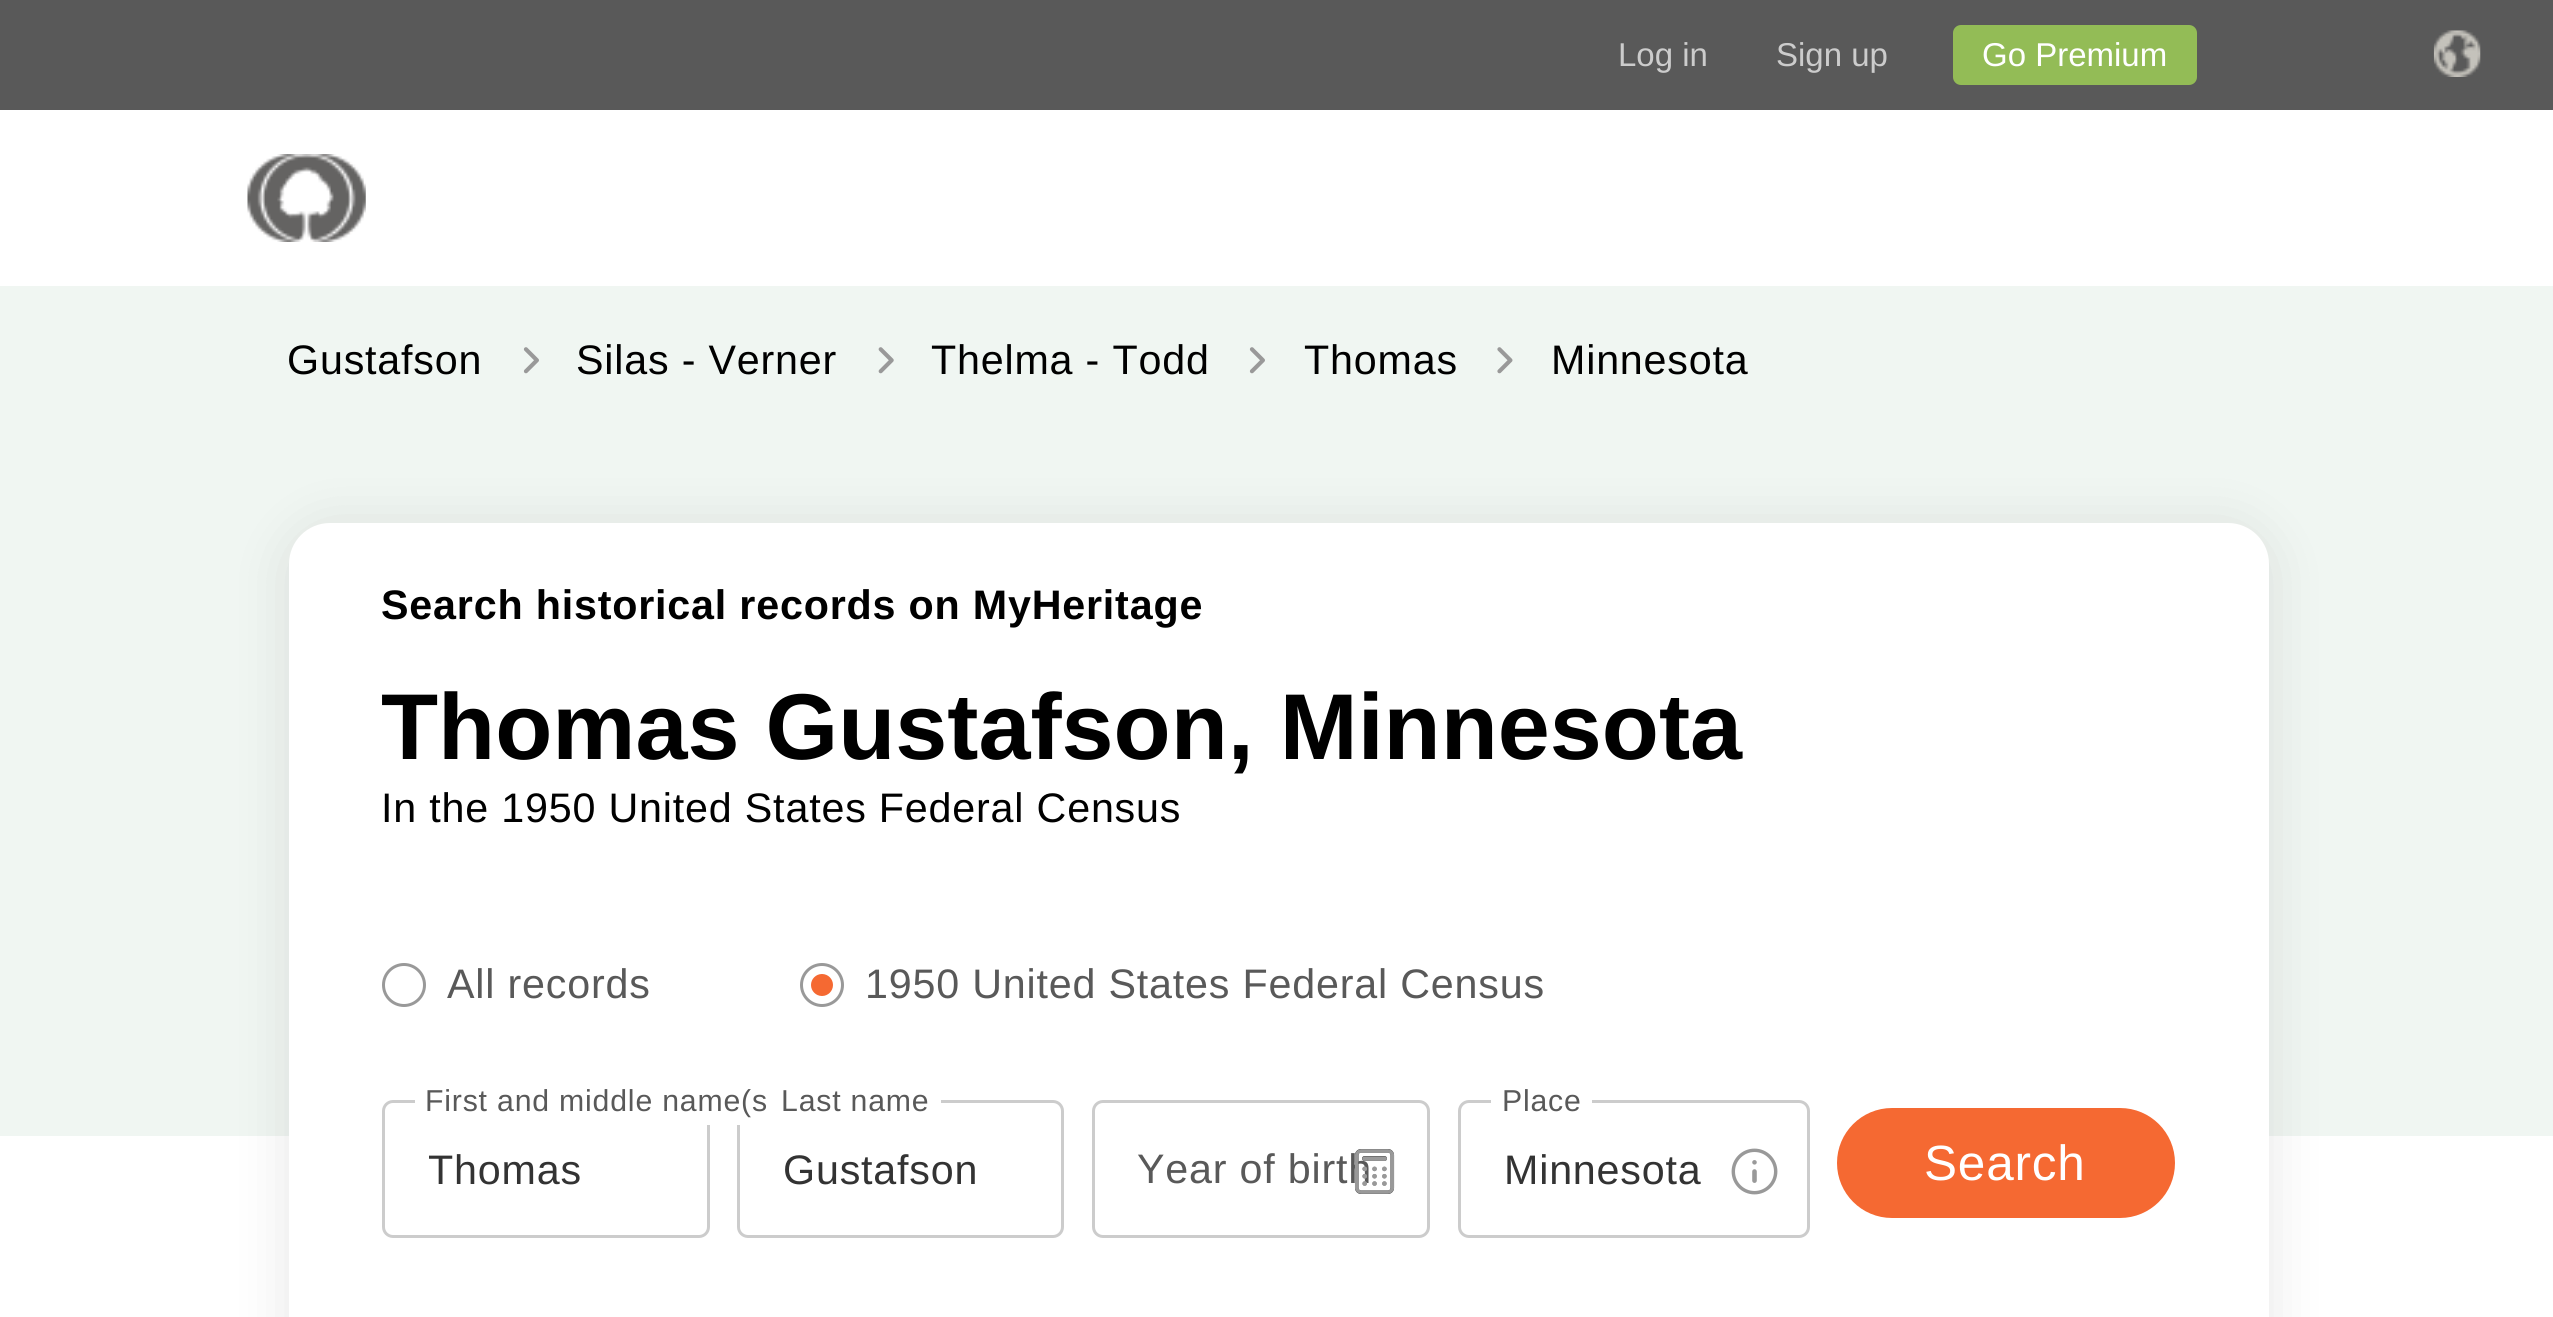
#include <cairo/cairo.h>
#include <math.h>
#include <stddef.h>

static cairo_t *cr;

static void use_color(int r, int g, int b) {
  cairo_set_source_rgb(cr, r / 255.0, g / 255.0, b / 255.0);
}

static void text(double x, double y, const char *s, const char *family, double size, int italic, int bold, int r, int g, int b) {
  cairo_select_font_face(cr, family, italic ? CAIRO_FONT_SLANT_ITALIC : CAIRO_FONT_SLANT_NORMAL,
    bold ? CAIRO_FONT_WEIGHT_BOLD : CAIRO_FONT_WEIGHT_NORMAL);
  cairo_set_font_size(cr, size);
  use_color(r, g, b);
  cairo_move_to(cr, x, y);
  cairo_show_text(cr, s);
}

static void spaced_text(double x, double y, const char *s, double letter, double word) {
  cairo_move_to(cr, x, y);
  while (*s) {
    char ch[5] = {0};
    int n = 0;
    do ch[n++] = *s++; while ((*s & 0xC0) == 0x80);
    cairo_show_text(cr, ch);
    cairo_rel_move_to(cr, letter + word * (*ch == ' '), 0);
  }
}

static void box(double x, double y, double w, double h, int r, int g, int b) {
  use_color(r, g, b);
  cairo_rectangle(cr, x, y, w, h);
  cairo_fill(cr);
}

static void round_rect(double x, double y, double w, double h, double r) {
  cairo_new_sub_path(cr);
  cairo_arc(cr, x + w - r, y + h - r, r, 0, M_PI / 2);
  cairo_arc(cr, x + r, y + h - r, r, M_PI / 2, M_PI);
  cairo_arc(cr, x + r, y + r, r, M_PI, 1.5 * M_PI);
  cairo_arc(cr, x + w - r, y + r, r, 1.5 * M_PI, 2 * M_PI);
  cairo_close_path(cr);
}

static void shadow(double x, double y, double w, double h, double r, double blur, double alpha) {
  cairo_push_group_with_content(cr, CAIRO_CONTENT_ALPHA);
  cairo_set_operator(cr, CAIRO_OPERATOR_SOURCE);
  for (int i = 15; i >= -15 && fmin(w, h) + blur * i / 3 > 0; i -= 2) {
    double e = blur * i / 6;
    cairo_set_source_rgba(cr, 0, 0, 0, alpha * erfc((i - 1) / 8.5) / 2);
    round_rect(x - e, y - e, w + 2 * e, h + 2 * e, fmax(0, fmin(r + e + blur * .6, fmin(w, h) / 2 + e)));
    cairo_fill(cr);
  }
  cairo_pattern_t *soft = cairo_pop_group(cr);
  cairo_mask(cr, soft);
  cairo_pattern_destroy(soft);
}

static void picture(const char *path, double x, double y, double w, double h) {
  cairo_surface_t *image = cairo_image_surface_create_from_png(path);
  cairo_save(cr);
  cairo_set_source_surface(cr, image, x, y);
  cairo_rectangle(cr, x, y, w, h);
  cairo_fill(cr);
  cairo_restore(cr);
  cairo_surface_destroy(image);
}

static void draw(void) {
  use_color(255, 255, 255);
  cairo_paint(cr);
  box(0, 0, 2553, 110, 89, 89, 89);
  use_color(147, 188, 86);
  round_rect(1954.5, 26.5, 241, 57, 6.5);
  cairo_fill_preserve(cr);
  cairo_set_line_width(cr, 3);
  cairo_stroke(cr);
  picture("img_01.png", 2433, 30, 48, 47);
  picture("img_02.png", 247, 154, 119, 88);
  box(0, 286, 2553, 850, 240, 246, 242);
  picture("img_03.png", 523, 347, 16, 27);
  picture("img_04.png", 878, 347, 16, 27);
  picture("img_03.png", 1249, 347, 16, 27);
  picture("img_05.png", 1497, 347, 16, 27);
  use_color(0, 0, 0);
  shadow(289, 528, 1980, 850, 41, 27.5, 0.1);
  use_color(255, 255, 255);
  round_rect(289, 523, 1980, 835, 41);
  cairo_fill(cr);
  cairo_arc(cr, 404, 985, 20.5, 0, 2 * M_PI);
  use_color(153, 153, 153);
  cairo_stroke(cr);
  cairo_arc(cr, 822, 985, 20.5, 0, 2 * M_PI);
  cairo_stroke(cr);
  use_color(245, 105, 50);
  cairo_arc(cr, 822, 985, 11, 0, 2 * M_PI);
  cairo_fill(cr);
  round_rect(383.5, 1101.5, 325, 135, 9.5);
  use_color(204, 204, 204);
  cairo_stroke(cr);
  round_rect(738.5, 1101.5, 324, 135, 9.5);
  cairo_stroke(cr);
  box(415, 1100, 355, 25, 255, 255, 255);
  box(770, 1100, 171, 3, 255, 255, 255);
  round_rect(1093.5, 1101.5, 335, 135, 9.5);
  use_color(204, 204, 204);
  cairo_stroke(cr);
  round_rect(1459.5, 1101.5, 349, 135, 9.5);
  cairo_stroke(cr);
  box(1491, 1100, 101, 3, 255, 255, 255);
  picture("img_07.png", 1731, 1148, 47, 47);
  use_color(245, 105, 50);
  round_rect(1837, 1108, 338, 110, 55);
  cairo_fill(cr);
  text(1618, 66, "Log in", "Liberation Sans", 33, 0, 0, 204, 204, 204);
  text(1776, 66, "Sign up", "Liberation Sans", 33, 0, 0, 204, 204, 204);
  text(1982, 66, "Go Premium", "Liberation Sans", 33, 0, 0, 255, 255, 255);
  cairo_set_font_size(cr, 41.25);
  use_color(0, 0, 0);
  spaced_text(287, 374, "Gustafson", 0.8, 0);
  spaced_text(576, 374, "Silas - Verner", 0.8, 0);
  spaced_text(931, 374, "Thelma - Todd", 0.8, 0);
  spaced_text(1304, 374, "Thomas", 0.8, 0);
  spaced_text(1551, 374, "Minnesota", 0.8, 0);
  cairo_select_font_face(cr, "Liberation Sans", CAIRO_FONT_SLANT_NORMAL, CAIRO_FONT_WEIGHT_BOLD);
  spaced_text(381, 619, "Search historical records on MyHeritage", 0.8, 0);
  text(381, 759, "Thomas Gustafson, Minnesota", "Liberation Sans", 93.5, 0, 1, 0, 0, 0);
  cairo_select_font_face(cr, "Liberation Sans", CAIRO_FONT_SLANT_NORMAL, CAIRO_FONT_WEIGHT_NORMAL);
  cairo_set_font_size(cr, 41.25);
  spaced_text(381, 822, "In the 1950 United States Federal Census", 0.8, 0);
  use_color(89, 89, 89);
  spaced_text(447, 998, "All records", 0.8, 0);
  spaced_text(865, 998, "1950 United States Federal Census", 0.8, 0);
  cairo_set_font_size(cr, 30.25);
  spaced_text(425, 1111, "First and middle name(s", 0.8, 0);
  cairo_save(cr);
  cairo_rectangle(cr, 429, 1147, 234, 47);
  cairo_clip(cr);
  cairo_set_font_size(cr, 41.25);
  use_color(51, 51, 51);
  spaced_text(428, 1184, "Thomas", 0.8, 0);
  cairo_restore(cr);
  spaced_text(781, 1111, "Last name", 0.8, 0);
  cairo_set_font_size(cr, 41.25);
  use_color(51, 51, 51);
  spaced_text(783, 1184, "Gustafson", 0.8, 0);
  use_color(89, 89, 89);
  spaced_text(1137, 1183, "Year of birth", 0.8, 0);
  picture("img_06.png", 1354, 1149, 41, 45);
  cairo_set_font_size(cr, 30.25);
  spaced_text(1502, 1111, "Place", 0.8, 0);
  cairo_set_font_size(cr, 41.25);
  use_color(51, 51, 51);
  spaced_text(1504, 1184, "Minnesota", 0.8, 0);
  cairo_set_font_size(cr, 49.5);
  use_color(255, 255, 255);
  spaced_text(1924, 1180, "Search", 0.8, 0);
}

int main(void) {
  cairo_surface_t *surface = cairo_image_surface_create(CAIRO_FORMAT_RGB24, 2553, 1317);
  cr = cairo_create(surface);
  cairo_font_options_t *options = cairo_font_options_create();
  cairo_font_options_set_hint_metrics(options, CAIRO_HINT_METRICS_OFF);
  cairo_font_options_set_hint_style(options, CAIRO_HINT_STYLE_NONE);
  cairo_set_font_options(cr, options);
  cairo_set_miter_limit(cr, 4);
  draw();
  cairo_surface_write_to_png(surface, "out.png");
  cairo_font_options_destroy(options);
  cairo_destroy(cr);
  cairo_surface_destroy(surface);
  return 0;
}
